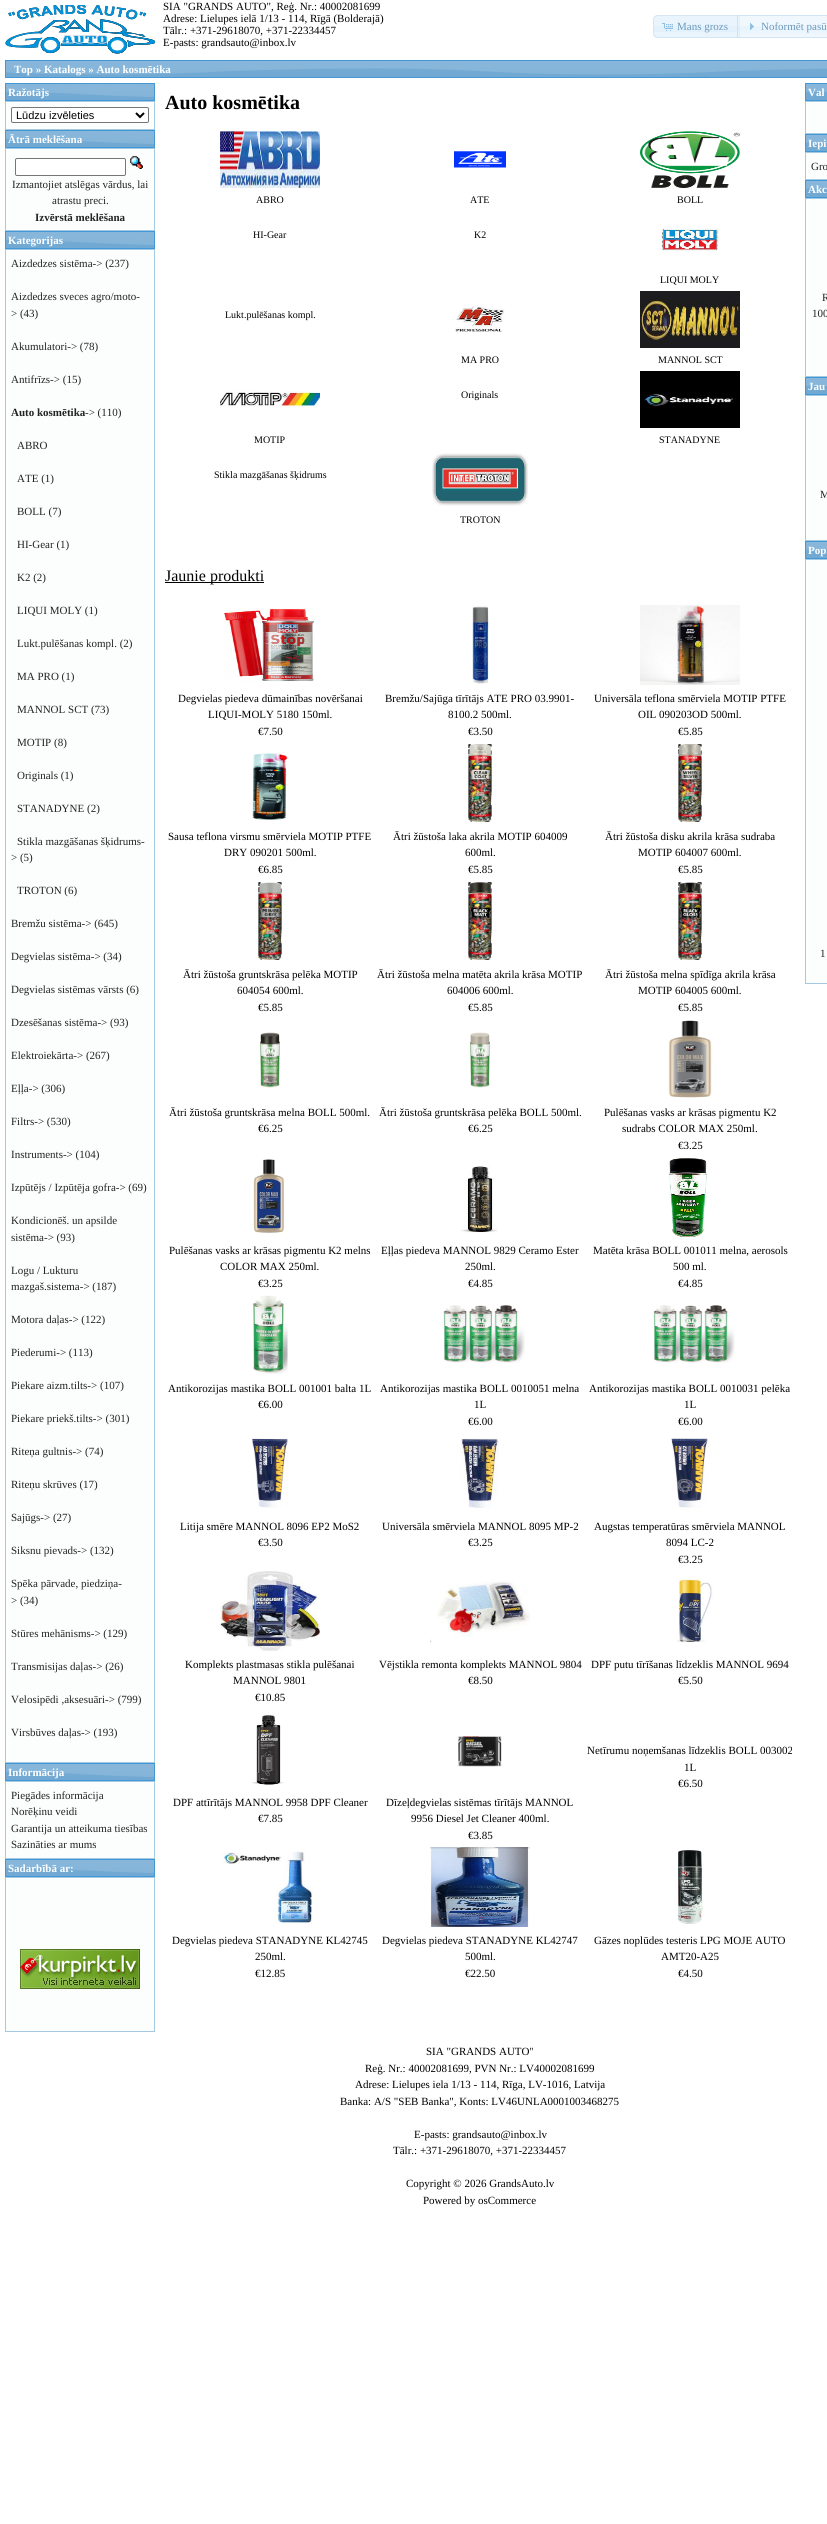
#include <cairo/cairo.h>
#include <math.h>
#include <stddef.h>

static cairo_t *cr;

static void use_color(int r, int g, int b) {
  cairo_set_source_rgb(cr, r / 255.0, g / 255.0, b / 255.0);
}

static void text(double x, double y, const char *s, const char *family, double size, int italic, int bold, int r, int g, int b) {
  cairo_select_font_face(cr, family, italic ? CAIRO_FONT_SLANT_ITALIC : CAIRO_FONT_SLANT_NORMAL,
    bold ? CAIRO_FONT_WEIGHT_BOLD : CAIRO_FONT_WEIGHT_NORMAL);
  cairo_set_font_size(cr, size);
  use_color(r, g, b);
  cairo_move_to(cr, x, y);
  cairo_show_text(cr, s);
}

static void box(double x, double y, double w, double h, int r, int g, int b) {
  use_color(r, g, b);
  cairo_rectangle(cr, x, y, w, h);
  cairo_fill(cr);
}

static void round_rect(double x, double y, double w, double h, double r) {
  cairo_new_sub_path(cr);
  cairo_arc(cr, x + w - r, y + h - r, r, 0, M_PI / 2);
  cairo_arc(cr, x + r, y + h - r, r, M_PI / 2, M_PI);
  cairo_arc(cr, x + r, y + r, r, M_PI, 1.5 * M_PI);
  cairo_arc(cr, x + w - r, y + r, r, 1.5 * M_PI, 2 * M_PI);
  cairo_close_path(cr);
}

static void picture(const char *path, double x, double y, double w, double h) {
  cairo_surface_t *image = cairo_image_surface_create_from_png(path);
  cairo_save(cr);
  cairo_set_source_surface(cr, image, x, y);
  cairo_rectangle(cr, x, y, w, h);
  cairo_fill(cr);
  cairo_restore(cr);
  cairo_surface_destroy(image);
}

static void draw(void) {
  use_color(255, 255, 255);
  cairo_paint(cr);
  picture("img_01.png", 5, 5, 150, 49);
  use_color(233, 244, 253);
  cairo_new_path(cr);
  cairo_move_to(cr, 658, 15);
  cairo_line_to(cr, 740, 15);
  cairo_line_to(cr, 740, 38);
  cairo_line_to(cr, 658, 38);
  cairo_curve_to(cr, 655, 38, 653, 36, 653, 33);
  cairo_line_to(cr, 653, 20);
  cairo_curve_to(cr, 653, 17, 655, 15, 658, 15);
  cairo_close_path(cr);
  cairo_fill(cr);
  box(653, 26, 87, 6, 227, 241, 252);
  cairo_new_path(cr);
  cairo_move_to(cr, 658, 15.5);
  cairo_line_to(cr, 739.5, 15.5);
  cairo_line_to(cr, 739.5, 37.5);
  cairo_line_to(cr, 658, 37.5);
  cairo_curve_to(cr, 655.5, 37.5, 653.5, 35.5, 653.5, 33);
  cairo_line_to(cr, 653.5, 20);
  cairo_curve_to(cr, 653.5, 17.5, 655.5, 15.5, 658, 15.5);
  cairo_close_path(cr);
  use_color(214, 230, 242);
  cairo_set_line_width(cr, 1);
  cairo_stroke(cr);
  picture("img_02.png", 662, 23, 11, 8);
  picture("img_03.png", 737, 15, 90, 23);
  cairo_rectangle(cr, 737.5, 15.5, 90, 22);
  cairo_set_source_rgba(cr, 0.773, 0.859, 0.925, 0.7);
  cairo_stroke(cr);
  picture("img_04.png", 750, 23, 4, 7);
  picture("img_05.png", 6, 61, 821, 16);
  cairo_rectangle(cr, 5.5, 60.5, 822, 17);
  use_color(66, 151, 215);
  cairo_stroke(cr);
  picture("img_06.png", 6, 84, 148, 16);
  cairo_rectangle(cr, 5.5, 83.5, 149, 17);
  cairo_stroke(cr);
  use_color(252, 253, 253);
  cairo_rectangle(cr, 5.5, 101.5, 149, 28);
  cairo_fill_preserve(cr);
  use_color(166, 201, 226);
  cairo_stroke(cr);
  use_color(255, 255, 255);
  round_rect(11.5, 107.5, 137, 15, 1.5);
  cairo_fill_preserve(cr);
  use_color(118, 118, 118);
  cairo_stroke(cr);
  cairo_new_path(cr);
  cairo_move_to(cr, 136, 113);
  cairo_line_to(cr, 140, 117);
  cairo_line_to(cr, 144, 113);
  use_color(0, 0, 0);
  cairo_set_line_width(cr, 2);
  cairo_stroke(cr);
  picture("img_06.png", 6, 131, 148, 16);
  cairo_rectangle(cr, 5.5, 130.5, 149, 17);
  use_color(66, 151, 215);
  cairo_set_line_width(cr, 1);
  cairo_stroke(cr);
  use_color(252, 253, 253);
  cairo_rectangle(cr, 5.5, 148.5, 149, 82);
  cairo_fill_preserve(cr);
  use_color(166, 201, 226);
  cairo_stroke(cr);
  use_color(255, 255, 255);
  round_rect(15.5, 158.5, 110, 17, 1.5);
  cairo_fill_preserve(cr);
  use_color(118, 118, 118);
  cairo_stroke(cr);
  picture("img_07.png", 130, 156, 13, 13);
  picture("img_06.png", 6, 232, 148, 16);
  cairo_rectangle(cr, 5.5, 231.5, 149, 17);
  use_color(66, 151, 215);
  cairo_stroke(cr);
  use_color(252, 253, 253);
  cairo_rectangle(cr, 5.5, 249.5, 149, 1513);
  cairo_fill_preserve(cr);
  use_color(166, 201, 226);
  cairo_stroke(cr);
  picture("img_06.png", 6, 1764, 148, 16);
  cairo_rectangle(cr, 5.5, 1763.5, 149, 17);
  use_color(66, 151, 215);
  cairo_stroke(cr);
  use_color(252, 253, 253);
  cairo_rectangle(cr, 5.5, 1781.5, 149, 77);
  cairo_fill_preserve(cr);
  use_color(166, 201, 226);
  cairo_stroke(cr);
  picture("img_06.png", 6, 1860, 148, 16);
  cairo_rectangle(cr, 5.5, 1859.5, 149, 17);
  use_color(66, 151, 215);
  cairo_stroke(cr);
  use_color(252, 253, 253);
  cairo_rectangle(cr, 5.5, 1877.5, 149, 154);
  cairo_fill_preserve(cr);
  use_color(166, 201, 226);
  cairo_stroke(cr);
  picture("img_08.png", 20, 1949, 120, 40);
  picture("img_09.png", 220, 131, 100, 57);
  picture("img_10.png", 454, 151, 52, 17);
  picture("img_11.png", 640, 131, 100, 57);
  picture("img_12.png", 661, 228, 58, 23);
  picture("img_13.png", 455, 306, 50, 26);
  picture("img_14.png", 640, 291, 100, 57);
  picture("img_15.png", 220, 391, 100, 16);
  picture("img_16.png", 640, 371, 100, 57);
  picture("img_17.png", 432, 453, 96, 53);
  box(165, 582, 99, 1, 0, 0, 0);
  picture("img_18.png", 224, 608, 90, 74);
  picture("img_19.png", 472, 606, 17, 78);
  picture("img_20.png", 640, 605, 100, 80);
  picture("img_21.png", 252, 753, 36, 67);
  picture("img_22.png", 468, 744, 24, 78);
  picture("img_23.png", 678, 744, 24, 78);
  picture("img_24.png", 258, 882, 24, 78);
  picture("img_25.png", 468, 882, 24, 78);
  picture("img_26.png", 678, 882, 24, 78);
  picture("img_27.png", 260, 1032, 20, 56);
  picture("img_28.png", 470, 1032, 20, 56);
  picture("img_29.png", 668, 1020, 44, 78);
  picture("img_30.png", 253, 1159, 31, 74);
  picture("img_31.png", 460, 1166, 38, 67);
  picture("img_32.png", 668, 1158, 40, 79);
  picture("img_33.png", 252, 1295, 36, 79);
  picture("img_34.png", 443, 1305, 82, 58);
  picture("img_35.png", 653, 1305, 82, 58);
  picture("img_36.png", 252, 1438, 36, 70);
  picture("img_37.png", 460, 1438, 39, 70);
  picture("img_38.png", 671, 1438, 37, 70);
  picture("img_39.png", 220, 1571, 100, 80);
  picture("img_40.png", 430, 1581, 100, 62);
  picture("img_41.png", 676, 1578, 37, 65);
  picture("img_42.png", 251, 1715, 33, 70);
  picture("img_43.png", 458, 1736, 44, 31);
  picture("img_44.png", 220, 1851, 93, 73);
  picture("img_45.png", 430, 1847, 100, 80);
  picture("img_46.png", 678, 1850, 25, 74);
  picture("img_47.png", 806, 84, 21, 16);
  cairo_rectangle(cr, 805.5, 83.5, 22, 17);
  use_color(66, 151, 215);
  cairo_stroke(cr);
  use_color(252, 253, 253);
  cairo_rectangle(cr, 805.5, 101.5, 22, 32);
  cairo_fill_preserve(cr);
  use_color(166, 201, 226);
  cairo_stroke(cr);
  picture("img_47.png", 806, 135, 21, 16);
  cairo_rectangle(cr, 805.5, 134.5, 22, 17);
  use_color(66, 151, 215);
  cairo_stroke(cr);
  use_color(252, 253, 253);
  cairo_rectangle(cr, 805.5, 152.5, 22, 27);
  cairo_fill_preserve(cr);
  use_color(166, 201, 226);
  cairo_stroke(cr);
  picture("img_47.png", 806, 181, 21, 16);
  cairo_rectangle(cr, 805.5, 180.5, 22, 17);
  use_color(66, 151, 215);
  cairo_stroke(cr);
  use_color(252, 253, 253);
  cairo_rectangle(cr, 805.5, 198.5, 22, 178);
  cairo_fill_preserve(cr);
  use_color(166, 201, 226);
  cairo_stroke(cr);
  picture("img_47.png", 806, 378, 21, 16);
  cairo_rectangle(cr, 805.5, 377.5, 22, 17);
  use_color(66, 151, 215);
  cairo_stroke(cr);
  use_color(252, 253, 253);
  cairo_rectangle(cr, 805.5, 395.5, 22, 145);
  cairo_fill_preserve(cr);
  use_color(166, 201, 226);
  cairo_stroke(cr);
  picture("img_47.png", 806, 542, 21, 16);
  cairo_rectangle(cr, 805.5, 541.5, 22, 17);
  use_color(66, 151, 215);
  cairo_stroke(cr);
  use_color(252, 253, 253);
  cairo_rectangle(cr, 805.5, 559.5, 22, 424);
  cairo_fill_preserve(cr);
  use_color(166, 201, 226);
  cairo_stroke(cr);
  text(163, 10, "SIA \"GRANDS AUTO\", Reģ. Nr.: 40002081699", "Liberation Serif", 11, 0, 0, 0, 0, 0);
  text(163, 22, "Adrese: Lielupes ielā 1/13 - 114, Rīgā (Bolderajā)", "Liberation Serif", 11, 0, 0, 0, 0, 0);
  text(163, 34, "Tālr.: +371-29618070, +371-22334457", "Liberation Serif", 11, 0, 0, 0, 0, 0);
  text(677, 30, "Mans grozs", "Liberation Serif", 11, 0, 0, 109, 154, 187);
  text(761, 30, "Noformēt pasū", "Liberation Serif", 11, 0, 0, 109, 154, 187);
  text(163, 46, "E-pasts: grandsauto@inbox.lv", "Liberation Serif", 11, 0, 0, 0, 0, 0);
  text(14, 73, "Top » Katalogs » Auto kosmētika", "Liberation Serif", 11, 0, 1, 255, 255, 255);
  text(8, 96, "Ražotājs", "Liberation Serif", 11, 0, 1, 255, 255, 255);
  text(16, 119, "Lūdzu izvēleties", "Liberation Sans", 11, 0, 0, 0, 0, 0);
  text(8, 143, "Ātrā meklēšana", "Liberation Serif", 11, 0, 1, 255, 255, 255);
  text(12, 188, "Izmantojiet atslēgas vārdus, lai", "Liberation Serif", 11, 0, 0, 34, 34, 34);
  text(52, 204, "atrastu preci.", "Liberation Serif", 11, 0, 0, 34, 34, 34);
  text(35, 221, "Izvērstā meklēšana", "Liberation Serif", 11, 0, 1, 34, 34, 34);
  text(8, 244, "Kategorijas", "Liberation Serif", 11, 0, 1, 255, 255, 255);
  text(11, 267, "Aizdedzes sistēma-> (237)", "Liberation Serif", 11, 0, 0, 34, 34, 34);
  text(11, 300, "Aizdedzes sveces agro/moto-", "Liberation Serif", 11, 0, 0, 34, 34, 34);
  text(11, 317, "> (43)", "Liberation Serif", 11, 0, 0, 34, 34, 34);
  text(11, 350, "Akumulatori-> (78)", "Liberation Serif", 11, 0, 0, 34, 34, 34);
  text(11, 383, "Antifrīzs-> (15)", "Liberation Serif", 11, 0, 0, 34, 34, 34);
  text(11, 416, "Auto kosmētika", "Liberation Serif", 11, 0, 1, 34, 34, 34);
  text(85, 416, "-> (110)", "Liberation Serif", 11, 0, 0, 34, 34, 34);
  text(17, 449, "ABRO", "Liberation Serif", 11, 0, 0, 34, 34, 34);
  text(17, 482, "ATE (1)", "Liberation Serif", 11, 0, 0, 34, 34, 34);
  text(17, 515, "BOLL (7)", "Liberation Serif", 11, 0, 0, 34, 34, 34);
  text(17, 548, "HI-Gear (1)", "Liberation Serif", 11, 0, 0, 34, 34, 34);
  text(17, 581, "K2 (2)", "Liberation Serif", 11, 0, 0, 34, 34, 34);
  text(17, 614, "LIQUI MOLY (1)", "Liberation Serif", 11, 0, 0, 34, 34, 34);
  text(17, 647, "Lukt.pulēšanas kompl. (2)", "Liberation Serif", 11, 0, 0, 34, 34, 34);
  text(17, 680, "MA PRO (1)", "Liberation Serif", 11, 0, 0, 34, 34, 34);
  text(17, 713, "MANNOL SCT (73)", "Liberation Serif", 11, 0, 0, 34, 34, 34);
  text(17, 746, "MOTIP (8)", "Liberation Serif", 11, 0, 0, 34, 34, 34);
  text(17, 779, "Originals (1)", "Liberation Serif", 11, 0, 0, 34, 34, 34);
  text(17, 812, "STANADYNE (2)", "Liberation Serif", 11, 0, 0, 34, 34, 34);
  text(17, 845, "Stikla mazgāšanas šķidrums-", "Liberation Serif", 11, 0, 0, 34, 34, 34);
  text(11, 861, "> (5)", "Liberation Serif", 11, 0, 0, 34, 34, 34);
  text(17, 894, "TROTON (6)", "Liberation Serif", 11, 0, 0, 34, 34, 34);
  text(11, 927, "Bremžu sistēma-> (645)", "Liberation Serif", 11, 0, 0, 34, 34, 34);
  text(11, 960, "Degvielas sistēma-> (34)", "Liberation Serif", 11, 0, 0, 34, 34, 34);
  text(11, 993, "Degvielas sistēmas vārsts (6)", "Liberation Serif", 11, 0, 0, 34, 34, 34);
  text(11, 1026, "Dzesēšanas sistēma-> (93)", "Liberation Serif", 11, 0, 0, 34, 34, 34);
  text(11, 1059, "Elektroiekārta-> (267)", "Liberation Serif", 11, 0, 0, 34, 34, 34);
  text(11, 1092, "Eļļa-> (306)", "Liberation Serif", 11, 0, 0, 34, 34, 34);
  text(11, 1125, "Filtrs-> (530)", "Liberation Serif", 11, 0, 0, 34, 34, 34);
  text(11, 1158, "Instruments-> (104)", "Liberation Serif", 11, 0, 0, 34, 34, 34);
  text(11, 1191, "Izpūtējs / Izpūtēja gofra-> (69)", "Liberation Serif", 11, 0, 0, 34, 34, 34);
  text(11, 1224, "Kondicionēš. un apsilde", "Liberation Serif", 11, 0, 0, 34, 34, 34);
  text(11, 1241, "sistēma-> (93)", "Liberation Serif", 11, 0, 0, 34, 34, 34);
  text(11, 1274, "Logu / Lukturu", "Liberation Serif", 11, 0, 0, 34, 34, 34);
  text(11, 1290, "mazgaš.sistema-> (187)", "Liberation Serif", 11, 0, 0, 34, 34, 34);
  text(11, 1323, "Motora daļas-> (122)", "Liberation Serif", 11, 0, 0, 34, 34, 34);
  text(11, 1356, "Piederumi-> (113)", "Liberation Serif", 11, 0, 0, 34, 34, 34);
  text(11, 1389, "Piekare aizm.tilts-> (107)", "Liberation Serif", 11, 0, 0, 34, 34, 34);
  text(11, 1422, "Piekare priekš.tilts-> (301)", "Liberation Serif", 11, 0, 0, 34, 34, 34);
  text(11, 1455, "Riteņa gultnis-> (74)", "Liberation Serif", 11, 0, 0, 34, 34, 34);
  text(11, 1488, "Riteņu skrūves (17)", "Liberation Serif", 11, 0, 0, 34, 34, 34);
  text(11, 1521, "Sajūgs-> (27)", "Liberation Serif", 11, 0, 0, 34, 34, 34);
  text(11, 1554, "Siksnu pievads-> (132)", "Liberation Serif", 11, 0, 0, 34, 34, 34);
  text(11, 1587, "Spēka pārvade, piedziņa-", "Liberation Serif", 11, 0, 0, 34, 34, 34);
  text(11, 1604, "> (34)", "Liberation Serif", 11, 0, 0, 34, 34, 34);
  text(11, 1637, "Stūres mehānisms-> (129)", "Liberation Serif", 11, 0, 0, 34, 34, 34);
  text(11, 1670, "Transmisijas daļas-> (26)", "Liberation Serif", 11, 0, 0, 34, 34, 34);
  text(11, 1703, "Velosipēdi ,aksesuāri-> (799)", "Liberation Serif", 11, 0, 0, 34, 34, 34);
  text(11, 1736, "Virsbūves daļas-> (193)", "Liberation Serif", 11, 0, 0, 34, 34, 34);
  text(8, 1776, "Informācija", "Liberation Serif", 11, 0, 1, 255, 255, 255);
  text(11, 1799, "Piegādes informācija", "Liberation Serif", 11, 0, 0, 34, 34, 34);
  text(11, 1815, "Norēķinu veidi", "Liberation Serif", 11, 0, 0, 34, 34, 34);
  text(11, 1832, "Garantija un atteikuma tiesības", "Liberation Serif", 11, 0, 0, 34, 34, 34);
  text(11, 1848, "Sazināties ar mums", "Liberation Serif", 11, 0, 0, 34, 34, 34);
  text(8, 1872, "Sadarbībā ar:", "Liberation Serif", 11, 0, 1, 255, 255, 255);
  text(165, 109, "Auto kosmētika", "Liberation Serif", 20, 0, 1, 0, 0, 0);
  text(256, 203, "ABRO", "Liberation Serif", 10, 0, 0, 0, 0, 0);
  text(470, 203, "ATE", "Liberation Serif", 10, 0, 0, 0, 0, 0);
  text(677, 203, "BOLL", "Liberation Serif", 10, 0, 0, 0, 0, 0);
  text(253, 238, "HI-Gear", "Liberation Serif", 10, 0, 0, 0, 0, 0);
  text(474, 238, "K2", "Liberation Serif", 10, 0, 0, 0, 0, 0);
  text(660, 283, "LIQUI MOLY", "Liberation Serif", 10, 0, 0, 0, 0, 0);
  text(225, 318, "Lukt.pulēšanas kompl.", "Liberation Serif", 10, 0, 0, 0, 0, 0);
  text(461, 363, "MA PRO", "Liberation Serif", 10, 0, 0, 0, 0, 0);
  text(658, 363, "MANNOL SCT", "Liberation Serif", 10, 0, 0, 0, 0, 0);
  text(461, 398, "Originals", "Liberation Serif", 10, 0, 0, 0, 0, 0);
  text(254, 443, "MOTIP", "Liberation Serif", 10, 0, 0, 0, 0, 0);
  text(659, 443, "STANADYNE", "Liberation Serif", 10, 0, 0, 0, 0, 0);
  text(214, 478, "Stikla mazgāšanas šķidrums", "Liberation Serif", 10, 0, 0, 0, 0, 0);
  text(460, 523, "TROTON", "Liberation Serif", 10, 0, 0, 0, 0, 0);
  text(165, 581, "Jaunie produkti", "Liberation Serif", 16, 0, 0, 0, 0, 0);
  text(178, 702, "Degvielas piedeva dūmainības novēršanai", "Liberation Serif", 11, 0, 0, 0, 0, 0);
  text(208, 718, "LIQUI-MOLY 5180 150ml.", "Liberation Serif", 11, 0, 0, 0, 0, 0);
  text(258, 735, "€7.50", "Liberation Serif", 11, 0, 0, 0, 0, 0);
  text(385, 702, "Bremžu/Sajūga tīrītājs ATE PRO 03.9901-", "Liberation Serif", 11, 0, 0, 0, 0, 0);
  text(448, 718, "8100.2 500ml.", "Liberation Serif", 11, 0, 0, 0, 0, 0);
  text(468, 735, "€3.50", "Liberation Serif", 11, 0, 0, 0, 0, 0);
  text(594, 702, "Universāla teflona smērviela MOTIP PTFE", "Liberation Serif", 11, 0, 0, 0, 0, 0);
  text(638, 718, "OIL 090203OD 500ml.", "Liberation Serif", 11, 0, 0, 0, 0, 0);
  text(678, 735, "€5.85", "Liberation Serif", 11, 0, 0, 0, 0, 0);
  text(168, 840, "Sausa teflona virsmu smērviela MOTIP PTFE", "Liberation Serif", 11, 0, 0, 0, 0, 0);
  text(224, 856, "DRY 090201 500ml.", "Liberation Serif", 11, 0, 0, 0, 0, 0);
  text(258, 873, "€6.85", "Liberation Serif", 11, 0, 0, 0, 0, 0);
  text(393, 840, "Ātri žūstoša laka akrila MOTIP 604009", "Liberation Serif", 11, 0, 0, 0, 0, 0);
  text(465, 856, "600ml.", "Liberation Serif", 11, 0, 0, 0, 0, 0);
  text(468, 873, "€5.85", "Liberation Serif", 11, 0, 0, 0, 0, 0);
  text(605, 840, "Ātri žūstoša disku akrila krāsa sudraba", "Liberation Serif", 11, 0, 0, 0, 0, 0);
  text(638, 856, "MOTIP 604007 600ml.", "Liberation Serif", 11, 0, 0, 0, 0, 0);
  text(678, 873, "€5.85", "Liberation Serif", 11, 0, 0, 0, 0, 0);
  text(183, 978, "Ātri žūstoša gruntskrāsa pelēka MOTIP", "Liberation Serif", 11, 0, 0, 0, 0, 0);
  text(237, 994, "604054 600ml.", "Liberation Serif", 11, 0, 0, 0, 0, 0);
  text(258, 1011, "€5.85", "Liberation Serif", 11, 0, 0, 0, 0, 0);
  text(377, 978, "Ātri žūstoša melna matēta akrila krāsa MOTIP", "Liberation Serif", 11, 0, 0, 0, 0, 0);
  text(447, 994, "604006 600ml.", "Liberation Serif", 11, 0, 0, 0, 0, 0);
  text(468, 1011, "€5.85", "Liberation Serif", 11, 0, 0, 0, 0, 0);
  text(605, 978, "Ātri žūstoša melna spīdīga akrila krāsa", "Liberation Serif", 11, 0, 0, 0, 0, 0);
  text(638, 994, "MOTIP 604005 600ml.", "Liberation Serif", 11, 0, 0, 0, 0, 0);
  text(678, 1011, "€5.85", "Liberation Serif", 11, 0, 0, 0, 0, 0);
  text(169, 1116, "Ātri žūstoša gruntskrāsa melna BOLL 500ml.", "Liberation Serif", 11, 0, 0, 0, 0, 0);
  text(258, 1132, "€6.25", "Liberation Serif", 11, 0, 0, 0, 0, 0);
  text(379, 1116, "Ātri žūstoša gruntskrāsa pelēka BOLL 500ml.", "Liberation Serif", 11, 0, 0, 0, 0, 0);
  text(468, 1132, "€6.25", "Liberation Serif", 11, 0, 0, 0, 0, 0);
  text(604, 1116, "Pulēšanas vasks ar krāsas pigmentu K2", "Liberation Serif", 11, 0, 0, 0, 0, 0);
  text(622, 1132, "sudrabs COLOR MAX 250ml.", "Liberation Serif", 11, 0, 0, 0, 0, 0);
  text(678, 1149, "€3.25", "Liberation Serif", 11, 0, 0, 0, 0, 0);
  text(169, 1254, "Pulēšanas vasks ar krāsas pigmentu K2 melns", "Liberation Serif", 11, 0, 0, 0, 0, 0);
  text(220, 1270, "COLOR MAX 250ml.", "Liberation Serif", 11, 0, 0, 0, 0, 0);
  text(258, 1287, "€3.25", "Liberation Serif", 11, 0, 0, 0, 0, 0);
  text(381, 1254, "Eļļas piedeva MANNOL 9829 Ceramo Ester", "Liberation Serif", 11, 0, 0, 0, 0, 0);
  text(465, 1270, "250ml.", "Liberation Serif", 11, 0, 0, 0, 0, 0);
  text(468, 1287, "€4.85", "Liberation Serif", 11, 0, 0, 0, 0, 0);
  text(593, 1254, "Matēta krāsa BOLL 001011 melna, aerosols", "Liberation Serif", 11, 0, 0, 0, 0, 0);
  text(673, 1270, "500 ml.", "Liberation Serif", 11, 0, 0, 0, 0, 0);
  text(678, 1287, "€4.85", "Liberation Serif", 11, 0, 0, 0, 0, 0);
  text(168, 1392, "Antikorozijas mastika BOLL 001001 balta 1L", "Liberation Serif", 11, 0, 0, 0, 0, 0);
  text(258, 1408, "€6.00", "Liberation Serif", 11, 0, 0, 0, 0, 0);
  text(380, 1392, "Antikorozijas mastika BOLL 0010051 melna", "Liberation Serif", 11, 0, 0, 0, 0, 0);
  text(474, 1408, "1L", "Liberation Serif", 11, 0, 0, 0, 0, 0);
  text(468, 1425, "€6.00", "Liberation Serif", 11, 0, 0, 0, 0, 0);
  text(589, 1392, "Antikorozijas mastika BOLL 0010031 pelēka", "Liberation Serif", 11, 0, 0, 0, 0, 0);
  text(684, 1408, "1L", "Liberation Serif", 11, 0, 0, 0, 0, 0);
  text(678, 1425, "€6.00", "Liberation Serif", 11, 0, 0, 0, 0, 0);
  text(180, 1530, "Litija smēre MANNOL 8096 EP2 MoS2", "Liberation Serif", 11, 0, 0, 0, 0, 0);
  text(258, 1546, "€3.50", "Liberation Serif", 11, 0, 0, 0, 0, 0);
  text(382, 1530, "Universāla smērviela MANNOL 8095 MP-2", "Liberation Serif", 11, 0, 0, 0, 0, 0);
  text(468, 1546, "€3.25", "Liberation Serif", 11, 0, 0, 0, 0, 0);
  text(594, 1530, "Augstas temperatūras smērviela MANNOL", "Liberation Serif", 11, 0, 0, 0, 0, 0);
  text(666, 1546, "8094 LC-2", "Liberation Serif", 11, 0, 0, 0, 0, 0);
  text(678, 1563, "€3.25", "Liberation Serif", 11, 0, 0, 0, 0, 0);
  text(185, 1668, "Komplekts plastmasas stikla pulēšanai", "Liberation Serif", 11, 0, 0, 0, 0, 0);
  text(233, 1684, "MANNOL 9801", "Liberation Serif", 11, 0, 0, 0, 0, 0);
  text(255, 1701, "€10.85", "Liberation Serif", 11, 0, 0, 0, 0, 0);
  text(379, 1668, "Vējstikla remonta komplekts MANNOL 9804", "Liberation Serif", 11, 0, 0, 0, 0, 0);
  text(468, 1684, "€8.50", "Liberation Serif", 11, 0, 0, 0, 0, 0);
  text(591, 1668, "DPF putu tīrīšanas līdzeklis MANNOL 9694", "Liberation Serif", 11, 0, 0, 0, 0, 0);
  text(678, 1684, "€5.50", "Liberation Serif", 11, 0, 0, 0, 0, 0);
  text(587, 1754, "Netīrumu noņemšanas līdzeklis BOLL 003002", "Liberation Serif", 11, 0, 0, 0, 0, 0);
  text(684, 1771, "1L", "Liberation Serif", 11, 0, 0, 0, 0, 0);
  text(678, 1787, "€6.50", "Liberation Serif", 11, 0, 0, 0, 0, 0);
  text(173, 1806, "DPF attīrītājs MANNOL 9958 DPF Cleaner", "Liberation Serif", 11, 0, 0, 0, 0, 0);
  text(258, 1822, "€7.85", "Liberation Serif", 11, 0, 0, 0, 0, 0);
  text(386, 1806, "Dīzeļdegvielas sistēmas tīrītājs MANNOL", "Liberation Serif", 11, 0, 0, 0, 0, 0);
  text(411, 1822, "9956 Diesel Jet Cleaner 400ml.", "Liberation Serif", 11, 0, 0, 0, 0, 0);
  text(468, 1839, "€3.85", "Liberation Serif", 11, 0, 0, 0, 0, 0);
  text(172, 1944, "Degvielas piedeva STANADYNE KL42745", "Liberation Serif", 11, 0, 0, 0, 0, 0);
  text(255, 1960, "250ml.", "Liberation Serif", 11, 0, 0, 0, 0, 0);
  text(255, 1977, "€12.85", "Liberation Serif", 11, 0, 0, 0, 0, 0);
  text(382, 1944, "Degvielas piedeva STANADYNE KL42747", "Liberation Serif", 11, 0, 0, 0, 0, 0);
  text(465, 1960, "500ml.", "Liberation Serif", 11, 0, 0, 0, 0, 0);
  text(465, 1977, "€22.50", "Liberation Serif", 11, 0, 0, 0, 0, 0);
  text(594, 1944, "Gāzes noplūdes testeris LPG MOJE AUTO", "Liberation Serif", 11, 0, 0, 0, 0, 0);
  text(661, 1960, "AMT20-A25", "Liberation Serif", 11, 0, 0, 0, 0, 0);
  text(678, 1977, "€4.50", "Liberation Serif", 11, 0, 0, 0, 0, 0);
  text(808, 96, "Val", "Liberation Serif", 11, 0, 1, 255, 255, 255);
  text(808, 147, "Iepi", "Liberation Serif", 11, 0, 1, 255, 255, 255);
  text(811, 170, "Gro", "Liberation Serif", 11, 0, 0, 34, 34, 34);
  text(808, 193, "Akc", "Liberation Serif", 11, 0, 1, 255, 255, 255);
  text(822, 301, "R", "Liberation Serif", 11, 0, 0, 34, 34, 34);
  text(812, 317, "100", "Liberation Serif", 11, 0, 0, 34, 34, 34);
  text(808, 390, "Jau", "Liberation Serif", 11, 0, 1, 255, 255, 255);
  text(820, 498, "M", "Liberation Serif", 11, 0, 0, 34, 34, 34);
  text(808, 554, "Pop", "Liberation Serif", 11, 0, 1, 255, 255, 255);
  text(820, 957, "1", "Liberation Serif", 11, 0, 0, 34, 34, 34);
  text(426, 2055, "SIA \"GRANDS AUTO\"", "Liberation Serif", 11, 0, 0, 0, 0, 0);
  text(365, 2072, "Reģ. Nr.: 40002081699, PVN Nr.: LV40002081699", "Liberation Serif", 11, 0, 0, 0, 0, 0);
  text(355, 2088, "Adrese: Lielupes iela 1/13 - 114, Rīga, LV-1016, Latvija", "Liberation Serif", 11, 0, 0, 0, 0, 0);
  text(340, 2105, "Banka: A/S \"SEB Banka\", Konts: LV46UNLA0001003468275", "Liberation Serif", 11, 0, 0, 0, 0, 0);
  text(414, 2138, "E-pasts: grandsauto@inbox.lv", "Liberation Serif", 11, 0, 0, 0, 0, 0);
  text(393, 2154, "Tālr.: +371-29618070, +371-22334457", "Liberation Serif", 11, 0, 0, 0, 0, 0);
  text(406, 2187, "Copyright © 2026 GrandsAuto.lv", "Liberation Serif", 11, 0, 0, 0, 0, 0);
  text(423, 2204, "Powered by osCommerce", "Liberation Serif", 11, 0, 0, 0, 0, 0);
}

int main(void) {
  cairo_surface_t *surface = cairo_image_surface_create(CAIRO_FORMAT_RGB24, 827, 2524);
  cr = cairo_create(surface);
  cairo_font_options_t *options = cairo_font_options_create();
  cairo_font_options_set_hint_metrics(options, CAIRO_HINT_METRICS_OFF);
  cairo_font_options_set_hint_style(options, CAIRO_HINT_STYLE_NONE);
  cairo_set_font_options(cr, options);
  cairo_set_miter_limit(cr, 4);
  draw();
  cairo_surface_write_to_png(surface, "out.png");
  cairo_font_options_destroy(options);
  cairo_destroy(cr);
  cairo_surface_destroy(surface);
  return 0;
}
